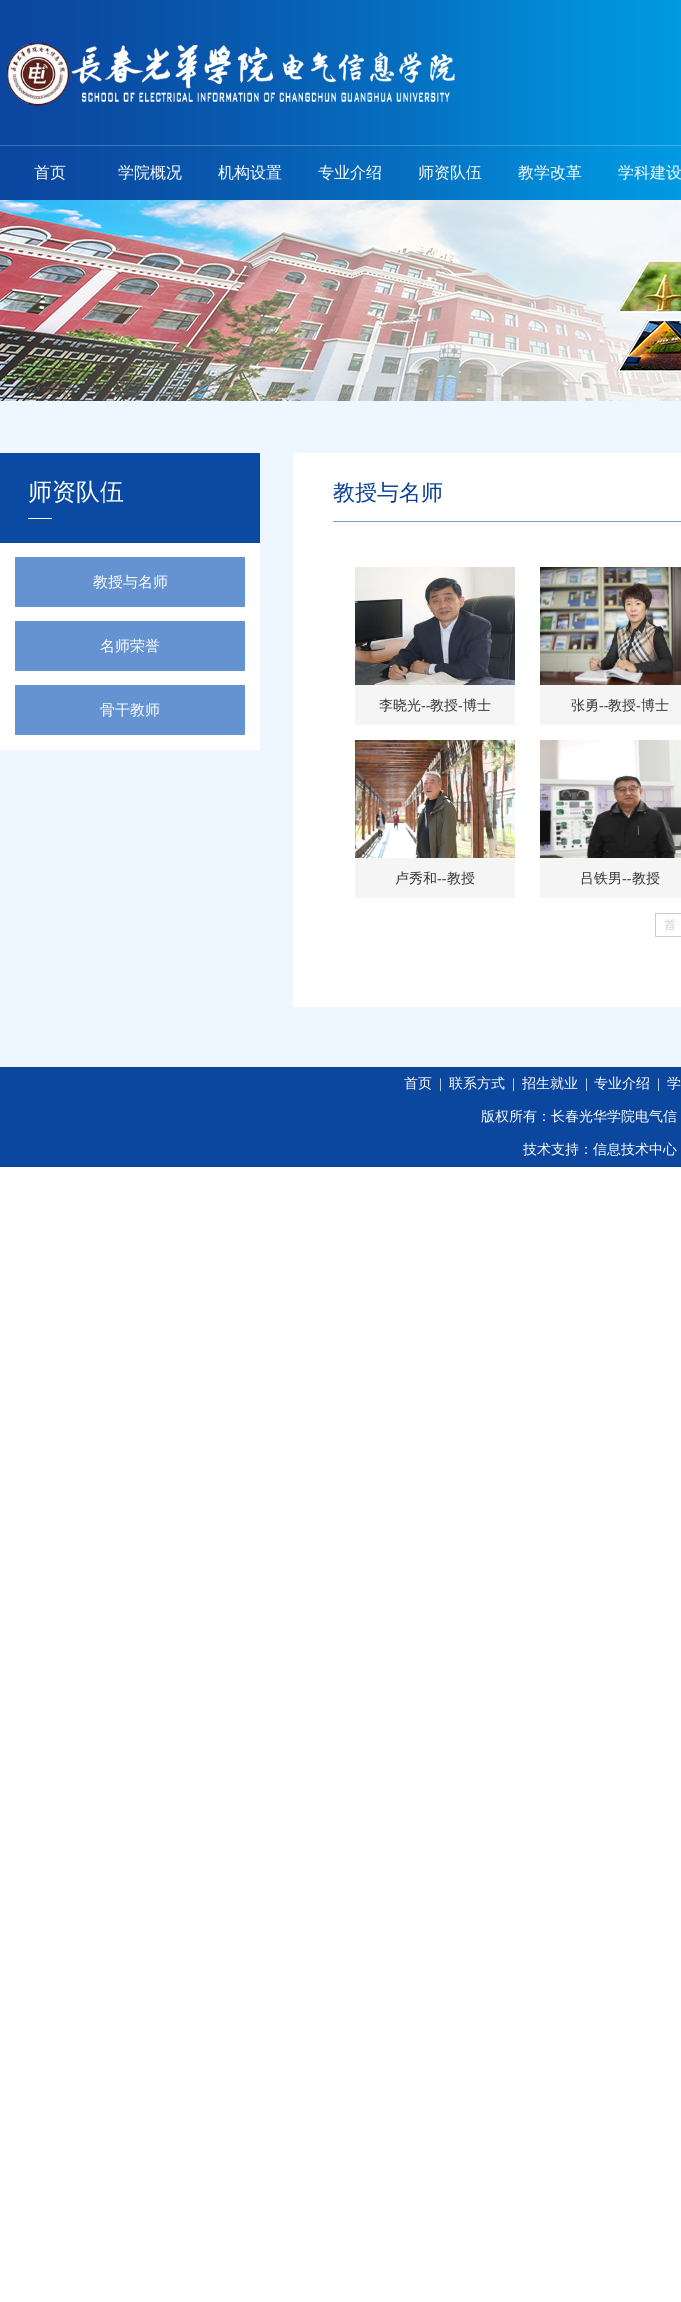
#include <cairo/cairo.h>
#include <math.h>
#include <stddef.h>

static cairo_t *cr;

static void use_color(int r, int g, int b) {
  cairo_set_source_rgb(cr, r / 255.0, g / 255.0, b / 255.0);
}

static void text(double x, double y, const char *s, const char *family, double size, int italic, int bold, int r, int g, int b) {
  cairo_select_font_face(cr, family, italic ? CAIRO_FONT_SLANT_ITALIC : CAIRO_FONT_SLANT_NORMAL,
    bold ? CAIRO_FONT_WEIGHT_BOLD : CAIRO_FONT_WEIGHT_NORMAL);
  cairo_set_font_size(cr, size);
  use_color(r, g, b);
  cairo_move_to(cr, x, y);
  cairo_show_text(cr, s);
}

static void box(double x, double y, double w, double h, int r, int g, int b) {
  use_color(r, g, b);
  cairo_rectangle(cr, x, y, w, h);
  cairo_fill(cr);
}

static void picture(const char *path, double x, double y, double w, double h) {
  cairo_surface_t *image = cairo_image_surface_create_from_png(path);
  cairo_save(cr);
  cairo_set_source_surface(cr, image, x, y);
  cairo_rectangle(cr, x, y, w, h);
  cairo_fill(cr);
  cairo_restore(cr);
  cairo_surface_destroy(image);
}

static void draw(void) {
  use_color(255, 255, 255);
  cairo_paint(cr);
  picture("img_01.png", 0, 0, 681, 200);
  picture("img_02.png", 6, 42, 449, 65);
  picture("img_03.png", 0, 200, 681, 201);
  box(0, 401, 681, 666, 238, 247, 255);
  box(0, 453, 260, 90, 10, 74, 162);
  box(28, 518, 24, 1, 255, 255, 255);
  box(0, 543, 260, 207, 255, 255, 255);
  box(15, 557, 230, 50, 101, 146, 209);
  box(15, 621, 230, 50, 101, 146, 209);
  box(15, 685, 230, 50, 101, 146, 209);
  box(293, 453, 388, 554, 255, 255, 255);
  box(333, 521, 348, 1, 123, 157, 205);
  box(355, 685, 160, 40, 245, 245, 245);
  picture("img_04.png", 355, 567, 160, 118);
  box(540, 685, 141, 40, 245, 245, 245);
  picture("img_05.png", 540, 567, 141, 118);
  box(355, 858, 160, 40, 245, 245, 245);
  picture("img_06.png", 355, 740, 160, 118);
  box(540, 858, 141, 40, 245, 245, 245);
  picture("img_07.png", 540, 740, 141, 118);
  cairo_rectangle(cr, 655.5, 913.5, 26, 23);
  use_color(204, 204, 204);
  cairo_set_line_width(cr, 1);
  cairo_stroke(cr);
  box(0, 1067, 681, 100, 11, 70, 159);
  text(34, 178, "首页", "WenQuanYi Zen Hei Medium", 16, 0, 0, 255, 255, 255);
  text(118, 178, "学院概况", "WenQuanYi Zen Hei Medium", 16, 0, 0, 255, 255, 255);
  text(218, 178, "机构设置", "WenQuanYi Zen Hei Medium", 16, 0, 0, 255, 255, 255);
  text(318, 178, "专业介绍", "WenQuanYi Zen Hei Medium", 16, 0, 0, 255, 255, 255);
  text(418, 178, "师资队伍", "WenQuanYi Zen Hei Medium", 16, 0, 0, 255, 255, 255);
  text(518, 178, "教学改革", "WenQuanYi Zen Hei Medium", 16, 0, 0, 255, 255, 255);
  text(618, 178, "学科建设", "WenQuanYi Zen Hei Medium", 16, 0, 0, 255, 255, 255);
  text(28, 500, "师资队伍", "WenQuanYi Zen Hei Medium", 24, 0, 0, 255, 255, 255);
  text(93, 587, "教授与名师", "WenQuanYi Zen Hei Medium", 15, 0, 0, 255, 255, 255);
  text(100, 651, "名师荣誉", "WenQuanYi Zen Hei Medium", 15, 0, 0, 255, 255, 255);
  text(100, 715, "骨干教师", "WenQuanYi Zen Hei Medium", 15, 0, 0, 255, 255, 255);
  text(333, 500, "教授与名师", "WenQuanYi Zen Hei Medium", 22, 0, 0, 10, 63, 148);
  text(379, 710, "李晓光", "WenQuanYi Zen Hei Medium", 14, 0, 0, 51, 51, 51);
  text(421, 710, "--", "Liberation Serif", 14, 0, 0, 51, 51, 51);
  text(430, 710, "教授", "WenQuanYi Zen Hei Medium", 14, 0, 0, 51, 51, 51);
  text(458, 710, "-", "Liberation Serif", 14, 0, 0, 51, 51, 51);
  text(463, 710, "博士", "WenQuanYi Zen Hei Medium", 14, 0, 0, 51, 51, 51);
  text(571, 710, "张勇", "WenQuanYi Zen Hei Medium", 14, 0, 0, 51, 51, 51);
  text(599, 710, "--", "Liberation Serif", 14, 0, 0, 51, 51, 51);
  text(608, 710, "教授", "WenQuanYi Zen Hei Medium", 14, 0, 0, 51, 51, 51);
  text(636, 710, "-", "Liberation Serif", 14, 0, 0, 51, 51, 51);
  text(641, 710, "博士", "WenQuanYi Zen Hei Medium", 14, 0, 0, 51, 51, 51);
  text(395, 883, "卢秀和", "WenQuanYi Zen Hei Medium", 14, 0, 0, 51, 51, 51);
  text(437, 883, "--", "Liberation Serif", 14, 0, 0, 51, 51, 51);
  text(447, 883, "教授", "WenQuanYi Zen Hei Medium", 14, 0, 0, 51, 51, 51);
  text(580, 883, "吕铁男", "WenQuanYi Zen Hei Medium", 14, 0, 0, 51, 51, 51);
  text(622, 883, "--", "Liberation Serif", 14, 0, 0, 51, 51, 51);
  text(632, 883, "教授", "WenQuanYi Zen Hei Medium", 14, 0, 0, 51, 51, 51);
  text(664, 929, "首", "WenQuanYi Zen Hei Medium", 12, 0, 0, 204, 204, 204);
  text(404, 1088, "首页", "WenQuanYi Zen Hei Medium", 14, 0, 0, 255, 255, 255);
  text(439, 1088, "|", "Liberation Serif", 14, 0, 0, 255, 255, 255);
  text(449, 1088, "联系方式", "WenQuanYi Zen Hei Medium", 14, 0, 0, 255, 255, 255);
  text(512, 1088, "|", "Liberation Serif", 14, 0, 0, 255, 255, 255);
  text(522, 1088, "招生就业", "WenQuanYi Zen Hei Medium", 14, 0, 0, 255, 255, 255);
  text(585, 1088, "|", "Liberation Serif", 14, 0, 0, 255, 255, 255);
  text(594, 1088, "专业介绍", "WenQuanYi Zen Hei Medium", 14, 0, 0, 255, 255, 255);
  text(657, 1088, "|", "Liberation Serif", 14, 0, 0, 255, 255, 255);
  text(667, 1088, "学", "WenQuanYi Zen Hei Medium", 14, 0, 0, 255, 255, 255);
  text(481, 1121, "版权所有：长春光华学院电气信", "WenQuanYi Zen Hei Medium", 14, 0, 0, 255, 255, 255);
  text(523, 1154, "技术支持：信息技术中心", "WenQuanYi Zen Hei Medium", 14, 0, 0, 255, 255, 255);
}

int main(void) {
  cairo_surface_t *surface = cairo_image_surface_create(CAIRO_FORMAT_RGB24, 681, 2302);
  cr = cairo_create(surface);
  cairo_font_options_t *options = cairo_font_options_create();
  cairo_font_options_set_hint_metrics(options, CAIRO_HINT_METRICS_OFF);
  cairo_font_options_set_hint_style(options, CAIRO_HINT_STYLE_NONE);
  cairo_set_font_options(cr, options);
  cairo_set_miter_limit(cr, 4);
  draw();
  cairo_surface_write_to_png(surface, "out.png");
  cairo_font_options_destroy(options);
  cairo_destroy(cr);
  cairo_surface_destroy(surface);
  return 0;
}
